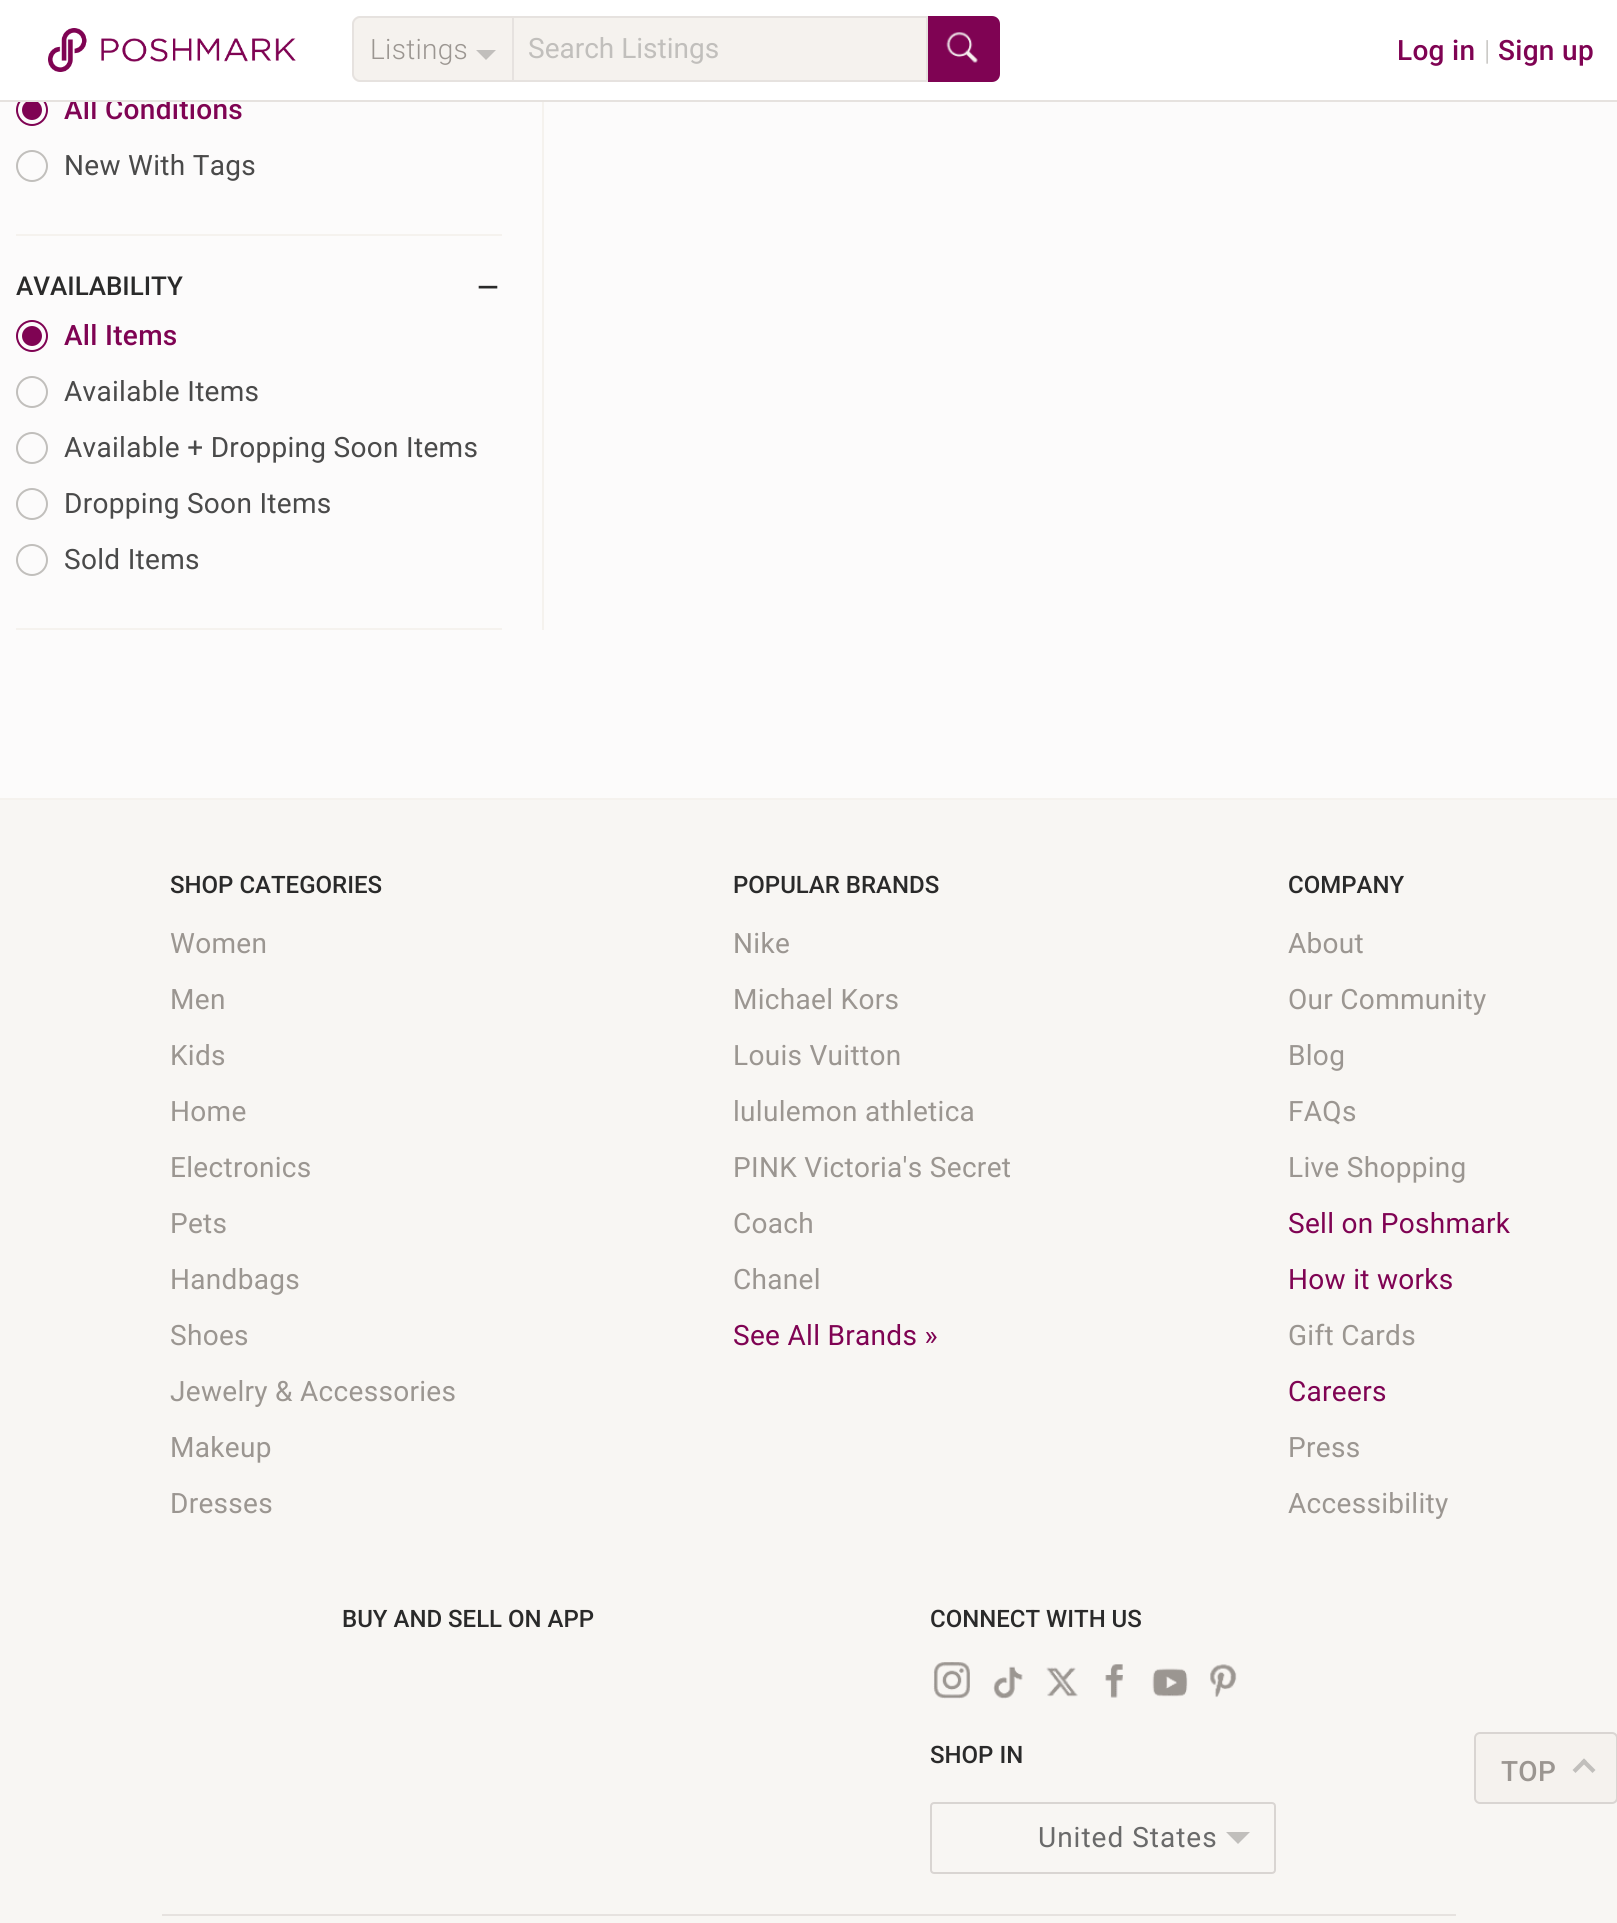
#include <cairo/cairo.h>
#include <math.h>
#include <stddef.h>

static cairo_t *cr;

static void use_color(int r, int g, int b) {
  cairo_set_source_rgb(cr, r / 255.0, g / 255.0, b / 255.0);
}

static void text(double x, double y, const char *s, const char *family, double size, int italic, int bold, int r, int g, int b) {
  cairo_select_font_face(cr, family, italic ? CAIRO_FONT_SLANT_ITALIC : CAIRO_FONT_SLANT_NORMAL,
    bold ? CAIRO_FONT_WEIGHT_BOLD : CAIRO_FONT_WEIGHT_NORMAL);
  cairo_set_font_size(cr, size);
  use_color(r, g, b);
  cairo_move_to(cr, x, y);
  cairo_show_text(cr, s);
}

static void spaced_text(double x, double y, const char *s, double letter, double word) {
  cairo_move_to(cr, x, y);
  while (*s) {
    char ch[5] = {0};
    int n = 0;
    do ch[n++] = *s++; while ((*s & 0xC0) == 0x80);
    cairo_show_text(cr, ch);
    cairo_rel_move_to(cr, letter + word * (*ch == ' '), 0);
  }
}

static void box(double x, double y, double w, double h, int r, int g, int b) {
  use_color(r, g, b);
  cairo_rectangle(cr, x, y, w, h);
  cairo_fill(cr);
}

static void round_rect(double x, double y, double w, double h, double r) {
  cairo_new_sub_path(cr);
  cairo_arc(cr, x + w - r, y + h - r, r, 0, M_PI / 2);
  cairo_arc(cr, x + r, y + h - r, r, M_PI / 2, M_PI);
  cairo_arc(cr, x + r, y + r, r, M_PI, 1.5 * M_PI);
  cairo_arc(cr, x + w - r, y + r, r, 1.5 * M_PI, 2 * M_PI);
  cairo_close_path(cr);
}

static void picture(const char *path, double x, double y, double w, double h) {
  cairo_surface_t *image = cairo_image_surface_create_from_png(path);
  cairo_save(cr);
  cairo_set_source_surface(cr, image, x, y);
  cairo_rectangle(cr, x, y, w, h);
  cairo_fill(cr);
  cairo_restore(cr);
  cairo_surface_destroy(image);
}

static void draw(void) {
  use_color(252, 251, 251);
  cairo_paint(cr);
  box(542, 102, 2, 528, 245, 242, 238);
  box(16, 234, 486, 2, 245, 242, 238);
  cairo_arc(cr, 32, 110, 15, 0, 2 * M_PI);
  use_color(127, 3, 83);
  cairo_stroke(cr);
  cairo_arc(cr, 32, 110, 10, 0, 2 * M_PI);
  cairo_fill(cr);
  cairo_arc(cr, 32, 166, 15, 0, 2 * M_PI);
  use_color(193, 191, 188);
  cairo_stroke(cr);
  box(16, 628, 486, 2, 245, 242, 238);
  cairo_arc(cr, 32, 336, 15, 0, 2 * M_PI);
  use_color(127, 3, 83);
  cairo_stroke(cr);
  cairo_arc(cr, 32, 336, 10, 0, 2 * M_PI);
  cairo_fill(cr);
  cairo_arc(cr, 32, 392, 15, 0, 2 * M_PI);
  use_color(193, 191, 188);
  cairo_stroke(cr);
  cairo_arc(cr, 32, 448, 15, 0, 2 * M_PI);
  cairo_stroke(cr);
  cairo_arc(cr, 32, 504, 15, 0, 2 * M_PI);
  cairo_stroke(cr);
  cairo_arc(cr, 32, 560, 15, 0, 2 * M_PI);
  cairo_stroke(cr);
  box(0, 800, 1617, 1123, 248, 246, 243);
  use_color(245, 242, 238);
  round_rect(1475, 1733, 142, 70, 5);
  cairo_fill_preserve(cr);
  use_color(217, 213, 210);
  cairo_stroke(cr);
  use_color(193, 191, 188);
  cairo_new_path(cr);
  cairo_move_to(cr, 1575.5, 1773);
  cairo_line_to(cr, 1572.5, 1770);
  cairo_line_to(cr, 1584, 1758.5);
  cairo_line_to(cr, 1587, 1761.5);
  cairo_close_path(cr);
  cairo_fill(cr);
  cairo_new_path(cr);
  cairo_move_to(cr, 1592.5, 1773);
  cairo_line_to(cr, 1581, 1761.5);
  cairo_line_to(cr, 1584, 1758.5);
  cairo_line_to(cr, 1595.5, 1770);
  cairo_close_path(cr);
  cairo_fill(cr);
  box(0, 798, 1617, 2, 245, 242, 238);
  picture("img_03.png", 933, 1662, 37, 37);
  picture("img_04.png", 993, 1666, 30, 33);
  picture("img_05.png", 1046, 1667, 32, 30);
  picture("img_06.png", 1105, 1664, 18, 34);
  picture("img_07.png", 1152, 1668, 36, 29);
  picture("img_08.png", 1210, 1664, 27, 34);
  round_rect(931, 1803, 344, 70, 3);
  use_color(217, 213, 210);
  cairo_stroke(cr);
  use_color(193, 191, 188);
  cairo_new_path(cr);
  cairo_move_to(cr, 1226, 1832);
  cairo_line_to(cr, 1250, 1832);
  cairo_line_to(cr, 1238, 1844);
  cairo_close_path(cr);
  cairo_fill(cr);
  box(162, 1914, 1294, 2, 230, 226, 223);
  cairo_select_font_face(cr, "Roboto Medium", CAIRO_FONT_SLANT_NORMAL, CAIRO_FONT_WEIGHT_NORMAL);
  cairo_set_font_size(cr, 28);
  use_color(127, 3, 83);
  spaced_text(64, 119, "All Conditions", 0.3, 0);
  box(0, 0, 1617, 100, 255, 255, 255);
  use_color(127, 3, 83);
  cairo_new_path(cr);
  cairo_move_to(cr, 926, 16);
  cairo_line_to(cr, 992, 16);
  cairo_curve_to(cr, 996.5, 16, 1000, 19.5, 1000, 24);
  cairo_line_to(cr, 1000, 74);
  cairo_curve_to(cr, 1000, 78.5, 996.5, 82, 992, 82);
  cairo_line_to(cr, 926, 82);
  cairo_close_path(cr);
  cairo_fill(cr);
  use_color(245, 242, 238);
  cairo_rectangle(cr, 513, 17, 414, 64);
  cairo_fill_preserve(cr);
  use_color(230, 226, 223);
  cairo_stroke(cr);
  text(528, 58, "Search Listings", "Roboto", 28, 0, 0, 193, 191, 188);
  use_color(245, 242, 238);
  cairo_new_path(cr);
  cairo_move_to(cr, 360, 16);
  cairo_line_to(cr, 512, 16);
  cairo_line_to(cr, 512, 82);
  cairo_line_to(cr, 360, 82);
  cairo_curve_to(cr, 355.5, 82, 352, 78.5, 352, 74);
  cairo_line_to(cr, 352, 24);
  cairo_curve_to(cr, 352, 19.5, 355.5, 16, 360, 16);
  cairo_close_path(cr);
  cairo_fill(cr);
  use_color(230, 226, 223);
  cairo_set_fill_rule(cr, CAIRO_FILL_RULE_EVEN_ODD);
  cairo_new_path(cr);
  cairo_move_to(cr, 360, 16);
  cairo_line_to(cr, 512, 16);
  cairo_line_to(cr, 512, 82);
  cairo_line_to(cr, 360, 82);
  cairo_curve_to(cr, 356, 82, 352, 78, 352, 74);
  cairo_line_to(cr, 352, 24);
  cairo_curve_to(cr, 352, 20, 356, 16, 360, 16);
  cairo_close_path(cr);
  cairo_move_to(cr, 360, 18);
  cairo_line_to(cr, 512, 18);
  cairo_line_to(cr, 512, 80);
  cairo_line_to(cr, 360, 80);
  cairo_curve_to(cr, 357, 80, 354, 77, 354, 74);
  cairo_line_to(cr, 354, 24);
  cairo_curve_to(cr, 354, 21, 357, 18, 360, 18);
  cairo_close_path(cr);
  cairo_fill(cr);
  use_color(193, 191, 188);
  cairo_set_fill_rule(cr, CAIRO_FILL_RULE_WINDING);
  cairo_new_path(cr);
  cairo_move_to(cr, 476, 50);
  cairo_line_to(cr, 496, 50);
  cairo_line_to(cr, 486, 60);
  cairo_close_path(cr);
  cairo_fill(cr);
  cairo_select_font_face(cr, "Roboto Light", CAIRO_FONT_SLANT_NORMAL, CAIRO_FONT_WEIGHT_NORMAL);
  use_color(155, 150, 145);
  spaced_text(370, 59, "Listings", 0.3, 0);
  cairo_select_font_face(cr, "Roboto Medium", CAIRO_FONT_SLANT_NORMAL, CAIRO_FONT_WEIGHT_NORMAL);
  use_color(127, 3, 83);
  spaced_text(1498, 60, "Sign up", 0.3, 0);
  cairo_select_font_face(cr, "Roboto Light", CAIRO_FONT_SLANT_NORMAL, CAIRO_FONT_WEIGHT_NORMAL);
  use_color(193, 191, 188);
  spaced_text(1484, 60, "|", 0.3, 0);
  cairo_select_font_face(cr, "Roboto Medium", CAIRO_FONT_SLANT_NORMAL, CAIRO_FONT_WEIGHT_NORMAL);
  use_color(127, 3, 83);
  spaced_text(1397, 60, "Log in", 0.3, 0);
  picture("img_02.png", 946, 32, 32, 31);
  picture("img_01.png", 48, 28, 248, 44);
  box(0, 100, 1617, 2, 230, 226, 223);
  cairo_select_font_face(cr, "Roboto", CAIRO_FONT_SLANT_NORMAL, CAIRO_FONT_WEIGHT_NORMAL);
  use_color(74, 74, 74);
  spaced_text(64, 175, "New With Tags", 0.3, 0);
  text(16, 295, "AVAILABILITY", "Roboto Medium", 26, 0, 0, 42, 42, 42);
  cairo_set_font_size(cr, 28);
  spaced_text(477, 297, "—", 0.3, 0);
  use_color(127, 3, 83);
  spaced_text(64, 345, "All Items", 0.3, 0);
  cairo_select_font_face(cr, "Roboto", CAIRO_FONT_SLANT_NORMAL, CAIRO_FONT_WEIGHT_NORMAL);
  use_color(74, 74, 74);
  spaced_text(64, 401, "Available Items", 0.3, 0);
  spaced_text(64, 457, "Available + Dropping Soon Items", 0.3, 0);
  spaced_text(64, 513, "Dropping Soon Items", 0.3, 0);
  spaced_text(64, 569, "Sold Items", 0.3, 0);
  cairo_select_font_face(cr, "Roboto Medium", CAIRO_FONT_SLANT_NORMAL, CAIRO_FONT_WEIGHT_NORMAL);
  use_color(155, 150, 145);
  spaced_text(1501, 1781, "TOP", 0.3, 0);
  text(170, 893, "SHOP CATEGORIES", "Roboto Medium", 24, 0, 0, 42, 42, 42);
  cairo_select_font_face(cr, "Roboto", CAIRO_FONT_SLANT_NORMAL, CAIRO_FONT_WEIGHT_NORMAL);
  cairo_set_font_size(cr, 28);
  use_color(155, 150, 145);
  spaced_text(170, 953, "Women", 0.3, 0);
  spaced_text(170, 1009, "Men", 0.3, 0);
  spaced_text(170, 1065, "Kids", 0.3, 0);
  spaced_text(170, 1121, "Home", 0.3, 0);
  spaced_text(170, 1177, "Electronics", 0.3, 0);
  spaced_text(170, 1233, "Pets", 0.3, 0);
  spaced_text(170, 1289, "Handbags", 0.3, 0);
  spaced_text(170, 1345, "Shoes", 0.3, 0);
  spaced_text(170, 1401, "Jewelry & Accessories", 0.3, 0);
  spaced_text(170, 1457, "Makeup", 0.3, 0);
  spaced_text(170, 1513, "Dresses", 0.3, 0);
  text(733, 893, "POPULAR BRANDS", "Roboto Medium", 24, 0, 0, 42, 42, 42);
  cairo_select_font_face(cr, "Roboto", CAIRO_FONT_SLANT_NORMAL, CAIRO_FONT_WEIGHT_NORMAL);
  cairo_set_font_size(cr, 28);
  use_color(155, 150, 145);
  spaced_text(733, 953, "Nike", 0.3, 0);
  spaced_text(733, 1009, "Michael Kors", 0.3, 0);
  spaced_text(733, 1065, "Louis Vuitton", 0.3, 0);
  spaced_text(733, 1121, "lululemon athletica", 0.3, 0);
  spaced_text(733, 1177, "PINK Victoria's Secret", 0.3, 0);
  spaced_text(733, 1233, "Coach", 0.3, 0);
  spaced_text(733, 1289, "Chanel", 0.3, 0);
  use_color(127, 3, 83);
  spaced_text(733, 1345, "See All Brands »", 0.3, 0);
  text(1288, 893, "COMPANY", "Roboto Medium", 24, 0, 0, 42, 42, 42);
  cairo_select_font_face(cr, "Roboto", CAIRO_FONT_SLANT_NORMAL, CAIRO_FONT_WEIGHT_NORMAL);
  cairo_set_font_size(cr, 28);
  use_color(155, 150, 145);
  spaced_text(1288, 953, "About", 0.3, 0);
  spaced_text(1288, 1009, "Our Community", 0.3, 0);
  spaced_text(1288, 1065, "Blog", 0.3, 0);
  spaced_text(1288, 1121, "FAQs", 0.3, 0);
  spaced_text(1288, 1177, "Live Shopping", 0.3, 0);
  use_color(127, 3, 83);
  spaced_text(1288, 1233, "Sell on Poshmark", 0.3, 0);
  spaced_text(1288, 1289, "How it works", 0.3, 0);
  use_color(155, 150, 145);
  spaced_text(1288, 1345, "Gift Cards", 0.3, 0);
  use_color(127, 3, 83);
  spaced_text(1288, 1401, "Careers", 0.3, 0);
  use_color(155, 150, 145);
  spaced_text(1288, 1457, "Press", 0.3, 0);
  spaced_text(1288, 1513, "Accessibility", 0.3, 0);
  text(342, 1627, "BUY AND SELL ON APP", "Roboto Medium", 24, 0, 0, 42, 42, 42);
  text(930, 1627, "CONNECT WITH US", "Roboto Medium", 24, 0, 0, 42, 42, 42);
  text(930, 1763, "SHOP IN", "Roboto Medium", 24, 0, 0, 42, 42, 42);
  cairo_select_font_face(cr, "Roboto", CAIRO_FONT_SLANT_NORMAL, CAIRO_FONT_WEIGHT_NORMAL);
  cairo_set_font_size(cr, 28);
  use_color(106, 106, 106);
  spaced_text(1038, 1847, "United States", 1, 0);
}

int main(void) {
  cairo_surface_t *surface = cairo_image_surface_create(CAIRO_FORMAT_RGB24, 1617, 1923);
  cr = cairo_create(surface);
  cairo_font_options_t *options = cairo_font_options_create();
  cairo_font_options_set_hint_metrics(options, CAIRO_HINT_METRICS_OFF);
  cairo_font_options_set_hint_style(options, CAIRO_HINT_STYLE_NONE);
  cairo_set_font_options(cr, options);
  cairo_set_miter_limit(cr, 4);
  draw();
  cairo_surface_write_to_png(surface, "out.png");
  cairo_font_options_destroy(options);
  cairo_destroy(cr);
  cairo_surface_destroy(surface);
  return 0;
}
